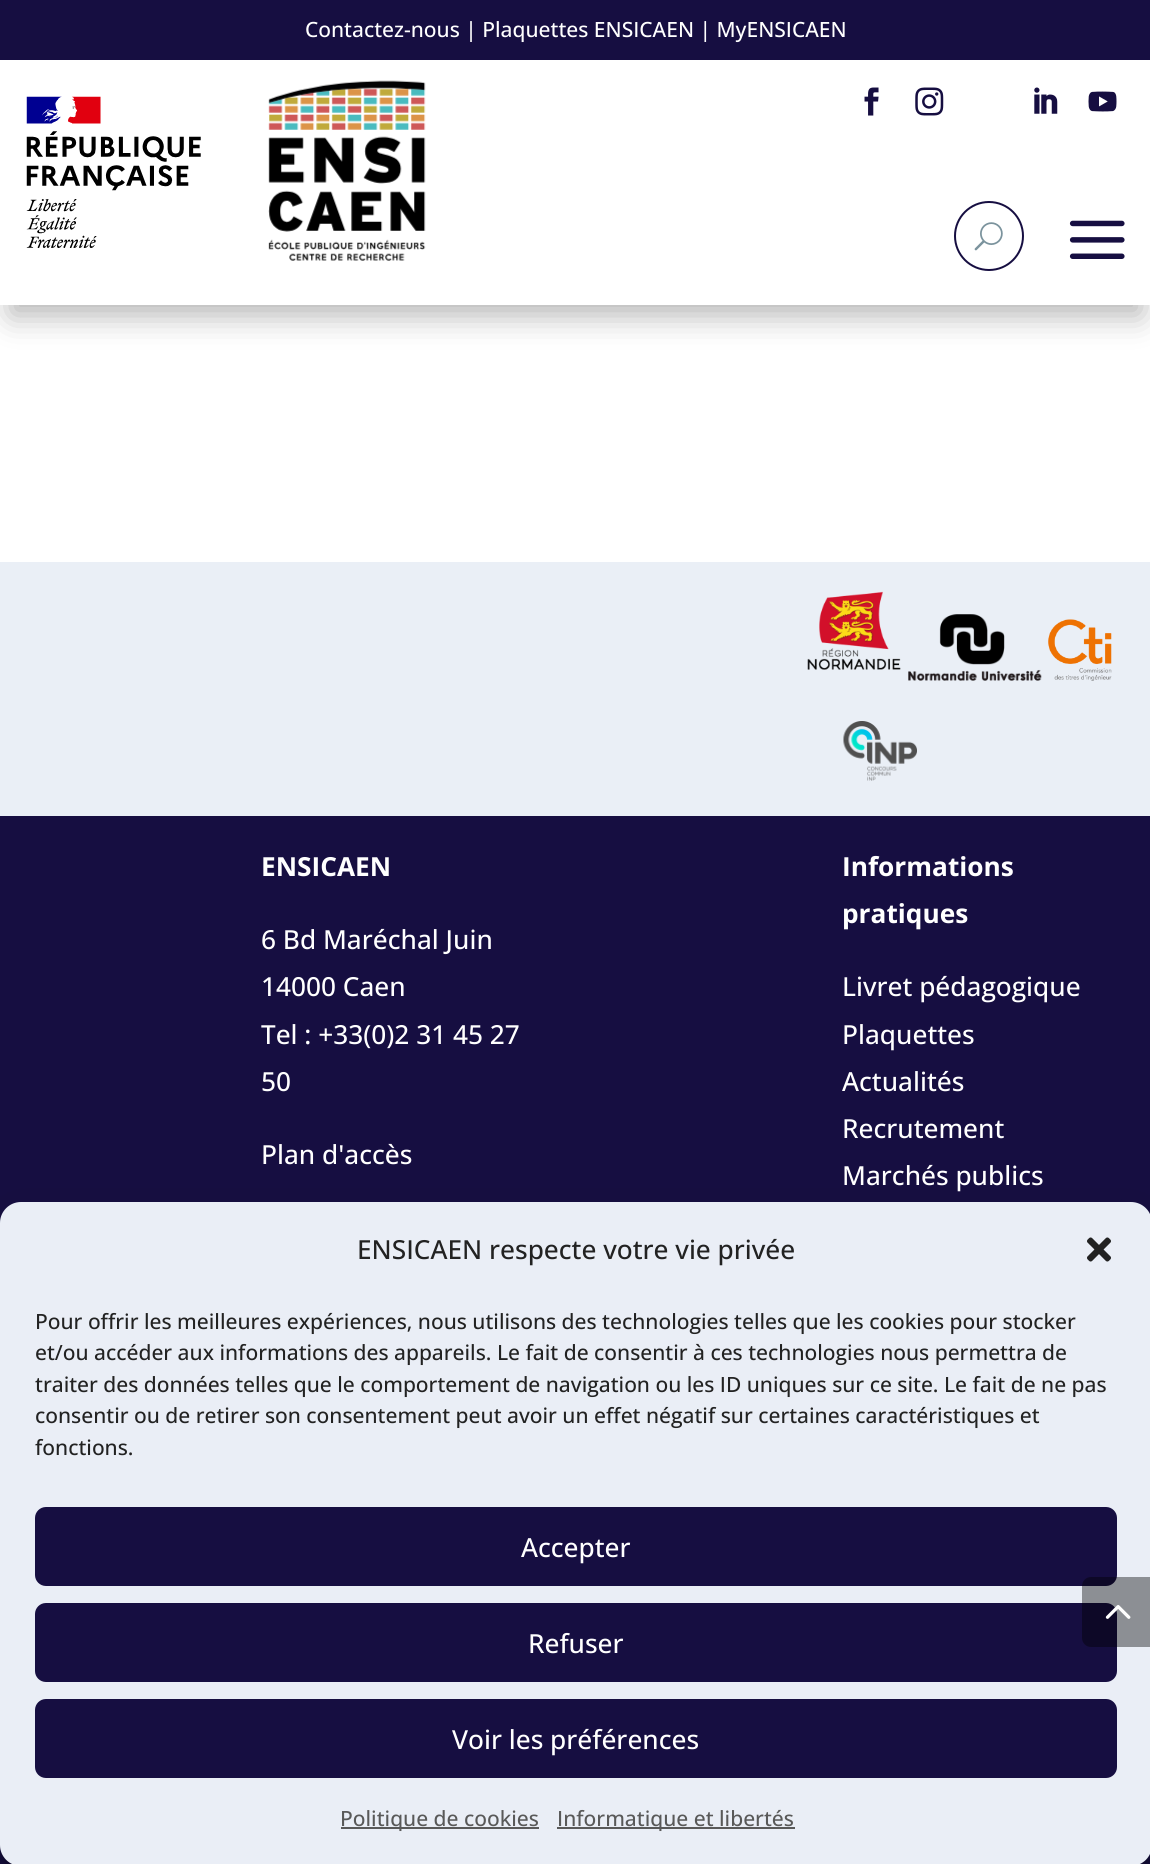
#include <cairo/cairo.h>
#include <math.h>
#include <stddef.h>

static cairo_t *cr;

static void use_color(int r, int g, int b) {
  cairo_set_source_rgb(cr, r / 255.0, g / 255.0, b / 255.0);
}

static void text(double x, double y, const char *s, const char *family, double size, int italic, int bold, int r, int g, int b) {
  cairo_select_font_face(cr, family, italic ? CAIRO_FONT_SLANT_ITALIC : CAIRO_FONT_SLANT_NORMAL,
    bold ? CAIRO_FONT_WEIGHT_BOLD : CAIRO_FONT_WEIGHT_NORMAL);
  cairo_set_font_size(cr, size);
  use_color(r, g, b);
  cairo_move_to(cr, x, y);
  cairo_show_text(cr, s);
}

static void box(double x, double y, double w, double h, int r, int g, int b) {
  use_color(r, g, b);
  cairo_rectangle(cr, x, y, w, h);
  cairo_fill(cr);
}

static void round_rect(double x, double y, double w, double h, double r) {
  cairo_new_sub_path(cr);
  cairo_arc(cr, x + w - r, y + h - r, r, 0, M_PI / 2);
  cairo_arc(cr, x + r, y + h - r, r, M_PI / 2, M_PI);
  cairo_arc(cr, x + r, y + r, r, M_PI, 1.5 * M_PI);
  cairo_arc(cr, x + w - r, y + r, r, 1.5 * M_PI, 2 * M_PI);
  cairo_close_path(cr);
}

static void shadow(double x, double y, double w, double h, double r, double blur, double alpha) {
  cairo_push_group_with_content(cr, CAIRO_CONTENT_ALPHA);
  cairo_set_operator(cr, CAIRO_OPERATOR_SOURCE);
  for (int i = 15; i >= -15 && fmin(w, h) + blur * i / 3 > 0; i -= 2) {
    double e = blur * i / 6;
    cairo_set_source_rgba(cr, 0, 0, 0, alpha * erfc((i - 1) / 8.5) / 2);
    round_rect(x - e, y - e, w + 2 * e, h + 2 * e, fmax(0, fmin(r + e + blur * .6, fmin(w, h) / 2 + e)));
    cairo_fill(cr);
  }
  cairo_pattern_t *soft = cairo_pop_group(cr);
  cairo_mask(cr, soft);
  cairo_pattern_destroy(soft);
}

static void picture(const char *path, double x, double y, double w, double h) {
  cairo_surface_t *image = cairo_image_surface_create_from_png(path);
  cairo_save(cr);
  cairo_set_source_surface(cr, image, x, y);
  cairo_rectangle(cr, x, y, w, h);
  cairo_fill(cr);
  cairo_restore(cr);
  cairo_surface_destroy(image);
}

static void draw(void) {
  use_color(255, 255, 255);
  cairo_paint(cr);
  use_color(0, 0, 0);
  shadow(11, 32, 1130, 283, 0, 16, 0.3);
  box(0, 60, 1150, 245, 255, 255, 255);
  box(0, 0, 1150, 60, 22, 14, 65);
  picture("img_01.png", 26, 96, 175, 152);
  picture("img_02.png", 268, 80, 158, 181);
  picture("img_03.png", 864, 87, 15, 29);
  picture("img_04.png", 915, 87, 29, 29);
  picture("img_05.png", 1034, 87, 24, 27);
  picture("img_06.png", 1088, 91, 29, 21);
  cairo_arc(cr, 989, 236, 34, 0, 2 * M_PI);
  cairo_stroke(cr);
  picture("img_07.png", 974, 222, 29, 29);
  picture("img_08.png", 1069, 220, 56, 39);
  box(0, 562, 1150, 254, 234, 239, 246);
  picture("img_09.png", 807, 591, 94, 79);
  picture("img_10.png", 908, 614, 134, 67);
  picture("img_11.png", 1048, 619, 64, 62);
  picture("img_12.png", 843, 721, 74, 60);
  box(0, 816, 1150, 407, 22, 14, 65);
  box(0, 1845, 1150, 19, 22, 14, 65);
  use_color(0, 0, 0);
  shadow(0, 1213, 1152, 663, 21, 5, 0.23);
  shadow(0, 1220, 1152, 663, 21, 17.5, 0.19);
  use_color(234, 238, 246);
  round_rect(0, 1202, 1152, 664, 21);
  cairo_fill(cr);
  picture("img_13.png", 1087, 1237, 24, 25);
  use_color(22, 14, 65);
  round_rect(36, 1508, 1080, 77, 10);
  cairo_fill_preserve(cr);
  cairo_stroke(cr);
  round_rect(36, 1604, 1080, 77, 10);
  cairo_fill_preserve(cr);
  cairo_stroke(cr);
  round_rect(36, 1700, 1080, 77, 10);
  cairo_fill_preserve(cr);
  cairo_stroke(cr);
  box(341, 1827, 198, 2, 89, 89, 89);
  box(557, 1827, 238, 2, 89, 89, 89);
  cairo_set_source_rgba(cr, 0, 0, 0, 0.4);
  cairo_new_path(cr);
  cairo_move_to(cr, 1091, 1577);
  cairo_line_to(cr, 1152, 1577);
  cairo_line_to(cr, 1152, 1647);
  cairo_line_to(cr, 1091, 1647);
  cairo_curve_to(cr, 1086, 1647, 1082, 1643, 1082, 1638);
  cairo_line_to(cr, 1082, 1586);
  cairo_curve_to(cr, 1082, 1581, 1086, 1577, 1091, 1577);
  cairo_close_path(cr);
  cairo_fill(cr);
  picture("img_14.png", 1105, 1605, 26, 14);
  text(305, 37, "Contactez-nous | Plaquettes ENSICAEN | MyENSICAEN", "Open Sans Medium", 21, 0, 0, 255, 255, 255);
  text(261, 876, "ENSICAEN", "Open Sans", 26.25, 0, 1, 255, 255, 255);
  text(261, 949, "6 Bd Maréchal Juin", "Open Sans Medium", 26.25, 0, 0, 255, 255, 255);
  text(261, 996, "14000 Caen", "Open Sans Medium", 26.25, 0, 0, 255, 255, 255);
  text(261, 1044, "Tel : +33(0)2 31 45 27", "Open Sans Medium", 26.25, 0, 0, 255, 255, 255);
  text(261, 1091, "50", "Open Sans Medium", 26.25, 0, 0, 255, 255, 255);
  text(261, 1164, "Plan d'accès", "Open Sans Medium", 26.25, 0, 0, 255, 255, 255);
  text(842, 876, "Informations", "Open Sans", 26.25, 0, 1, 255, 255, 255);
  text(842, 923, "pratiques", "Open Sans", 26.25, 0, 1, 255, 255, 255);
  text(842, 996, "Livret pédagogique", "Open Sans Medium", 26.25, 0, 0, 255, 255, 255);
  text(842, 1044, "Plaquettes", "Open Sans Medium", 26.25, 0, 0, 255, 255, 255);
  text(842, 1091, "Actualités", "Open Sans Medium", 26.25, 0, 0, 255, 255, 255);
  text(842, 1138, "Recrutement", "Open Sans Medium", 26.25, 0, 0, 255, 255, 255);
  text(842, 1185, "Marchés publics", "Open Sans Medium", 26.25, 0, 0, 255, 255, 255);
  text(357, 1259, "ENSICAEN respecte votre vie privée", "Open Sans Medium", 26.25, 0, 0, 34, 34, 34);
  text(35, 1329, "Pour offrir les meilleures expériences, nous utilisons des technologies telles que les cookies pour stocker", "Open Sans Medium", 21, 0, 0, 34, 34, 34);
  text(35, 1360, "et/ou accéder aux informations des appareils. Le fait de consentir à ces technologies nous permettra de", "Open Sans Medium", 21, 0, 0, 34, 34, 34);
  text(35, 1392, "traiter des données telles que le comportement de navigation ou les ID uniques sur ce site. Le fait de ne pas", "Open Sans Medium", 21, 0, 0, 34, 34, 34);
  text(35, 1423, "consentir ou de retirer son consentement peut avoir un effet négatif sur certaines caractéristiques et", "Open Sans Medium", 21, 0, 0, 34, 34, 34);
  text(35, 1455, "fonctions.", "Open Sans Medium", 21, 0, 0, 34, 34, 34);
  text(521, 1557, "Accepter", "Open Sans Medium", 26.25, 0, 0, 255, 255, 255);
  text(528, 1653, "Refuser", "Open Sans Medium", 26.25, 0, 0, 255, 255, 255);
  text(452, 1749, "Voir les préférences", "Open Sans Medium", 26.25, 0, 0, 255, 255, 255);
  text(340, 1826, "Politique de cookies", "Open Sans Medium", 21, 0, 0, 89, 89, 89);
  text(557, 1826, "Informatique et libertés", "Open Sans Medium", 21, 0, 0, 89, 89, 89);
}

int main(void) {
  cairo_surface_t *surface = cairo_image_surface_create(CAIRO_FORMAT_RGB24, 1150, 1864);
  cr = cairo_create(surface);
  cairo_font_options_t *options = cairo_font_options_create();
  cairo_font_options_set_hint_metrics(options, CAIRO_HINT_METRICS_OFF);
  cairo_font_options_set_hint_style(options, CAIRO_HINT_STYLE_NONE);
  cairo_set_font_options(cr, options);
  cairo_set_miter_limit(cr, 4);
  draw();
  cairo_surface_write_to_png(surface, "out.png");
  cairo_font_options_destroy(options);
  cairo_destroy(cr);
  cairo_surface_destroy(surface);
  return 0;
}
